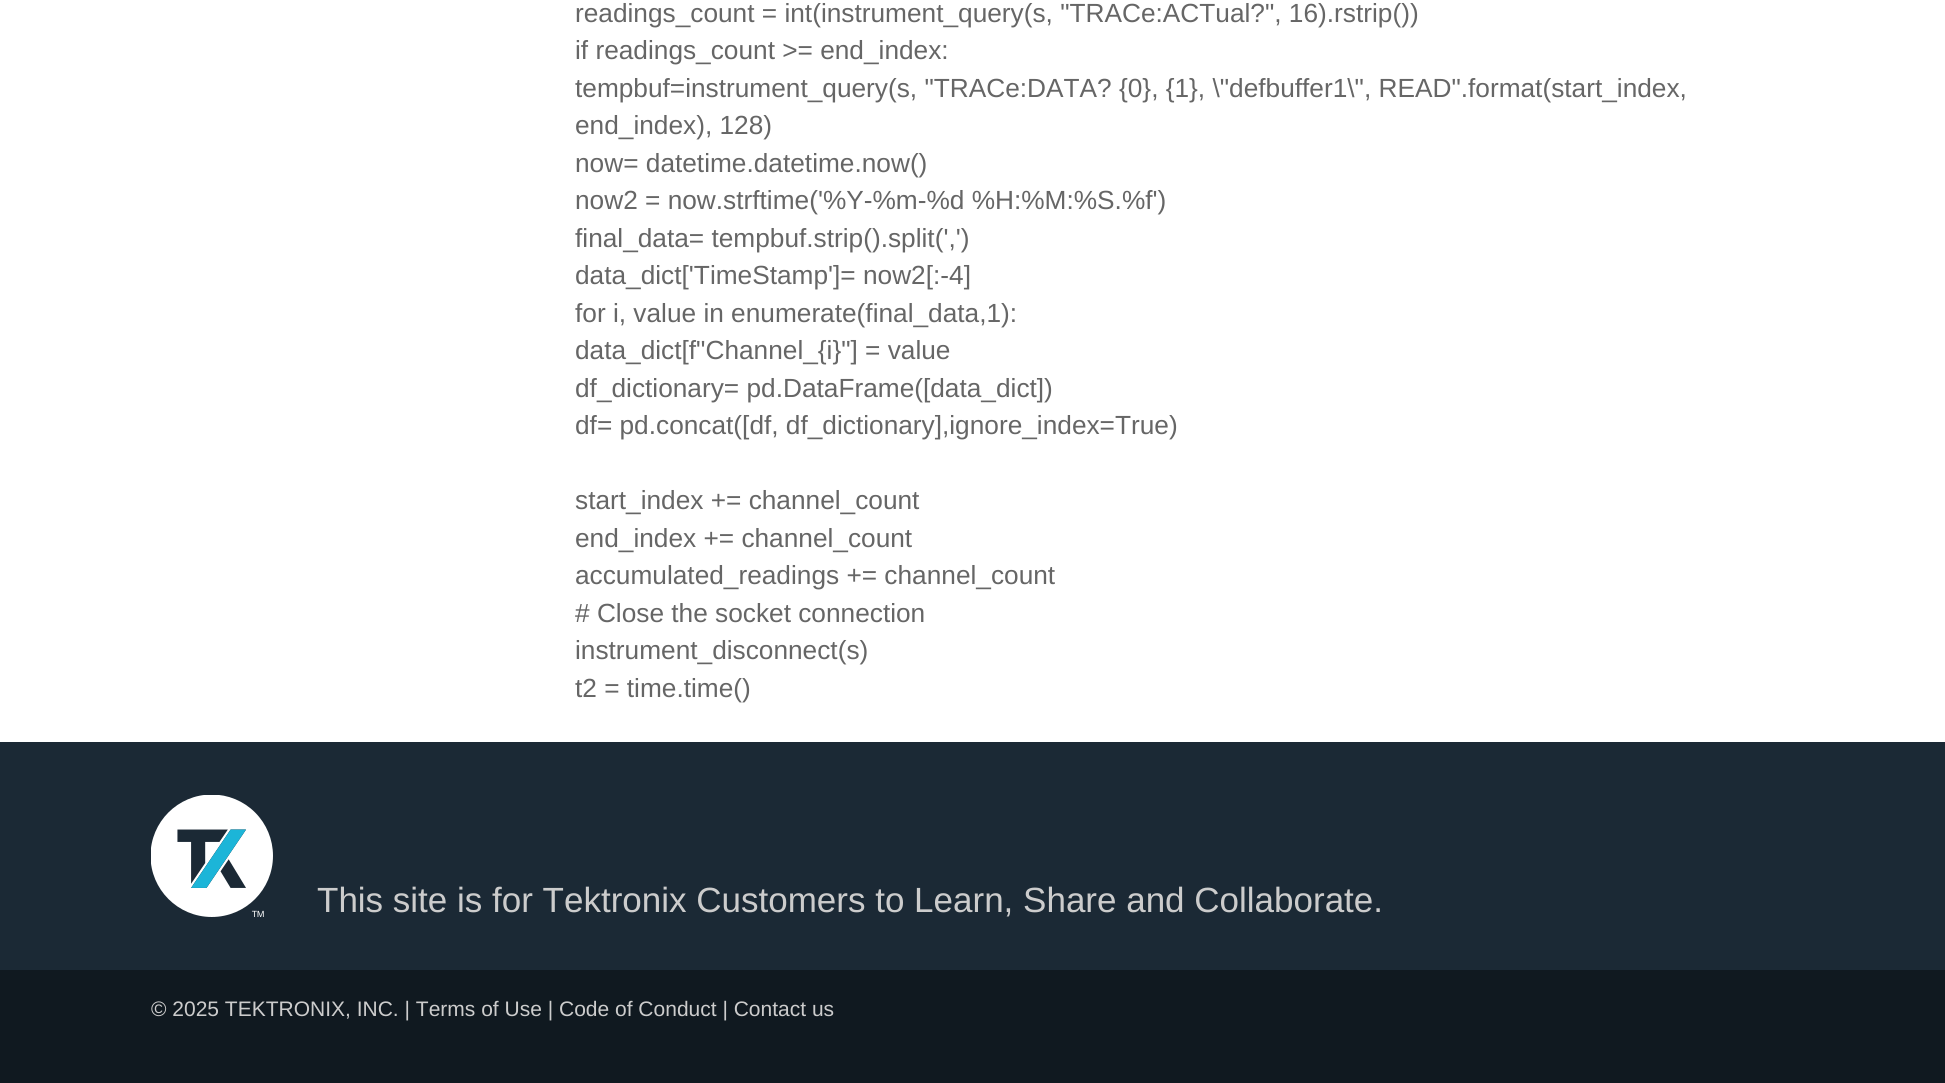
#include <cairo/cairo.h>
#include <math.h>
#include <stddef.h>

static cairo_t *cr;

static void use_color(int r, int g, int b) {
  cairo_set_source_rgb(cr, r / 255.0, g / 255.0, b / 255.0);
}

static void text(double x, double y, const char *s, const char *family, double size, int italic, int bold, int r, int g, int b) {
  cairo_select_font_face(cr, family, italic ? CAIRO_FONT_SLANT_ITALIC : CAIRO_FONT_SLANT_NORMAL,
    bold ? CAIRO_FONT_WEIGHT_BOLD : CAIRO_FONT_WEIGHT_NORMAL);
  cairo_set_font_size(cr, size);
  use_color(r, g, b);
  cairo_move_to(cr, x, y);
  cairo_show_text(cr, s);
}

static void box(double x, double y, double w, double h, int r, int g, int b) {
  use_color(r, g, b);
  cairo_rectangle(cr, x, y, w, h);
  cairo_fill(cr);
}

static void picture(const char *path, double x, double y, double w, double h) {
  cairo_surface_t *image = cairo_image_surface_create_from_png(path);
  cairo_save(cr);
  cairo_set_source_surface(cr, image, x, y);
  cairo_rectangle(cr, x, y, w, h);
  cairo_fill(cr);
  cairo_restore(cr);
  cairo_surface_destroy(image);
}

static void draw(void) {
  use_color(255, 255, 255);
  cairo_paint(cr);
  box(0, 742, 1945, 228, 27, 41, 53);
  picture("img_01.png", 151, 795, 122, 122);
  box(0, 970, 1945, 113, 16, 25, 32);
  text(575, 22, "readings_count = int(instrument_query(s, \"TRACe:ACTual?\", 16).rstrip())", "Liberation Sans", 26.25, 0, 0, 102, 102, 102);
  text(575, 59, "if readings_count >= end_index:", "Liberation Sans", 26.25, 0, 0, 102, 102, 102);
  text(575, 97, "tempbuf=instrument_query(s, \"TRACe:DATA? {0}, {1}, \\\"defbuffer1\\\", READ\".format(start_index,", "Liberation Sans", 26.25, 0, 0, 102, 102, 102);
  text(575, 134, "end_index), 128)", "Liberation Sans", 26.25, 0, 0, 102, 102, 102);
  text(575, 172, "now= datetime.datetime.now()", "Liberation Sans", 26.25, 0, 0, 102, 102, 102);
  text(575, 209, "now2 = now.strftime('%Y-%m-%d %H:%M:%S.%f')", "Liberation Sans", 26.25, 0, 0, 102, 102, 102);
  text(575, 247, "final_data= tempbuf.strip().split(',')", "Liberation Sans", 26.25, 0, 0, 102, 102, 102);
  text(575, 284, "data_dict['TimeStamp']= now2[:-4]", "Liberation Sans", 26.25, 0, 0, 102, 102, 102);
  text(575, 322, "for i, value in enumerate(final_data,1):", "Liberation Sans", 26.25, 0, 0, 102, 102, 102);
  text(575, 359, "data_dict[f\"Channel_{i}\"] = value", "Liberation Sans", 26.25, 0, 0, 102, 102, 102);
  text(575, 397, "df_dictionary= pd.DataFrame([data_dict])", "Liberation Sans", 26.25, 0, 0, 102, 102, 102);
  text(575, 434, "df= pd.concat([df, df_dictionary],ignore_index=True)", "Liberation Sans", 26.25, 0, 0, 102, 102, 102);
  text(575, 509, "start_index += channel_count", "Liberation Sans", 26.25, 0, 0, 102, 102, 102);
  text(575, 547, "end_index += channel_count", "Liberation Sans", 26.25, 0, 0, 102, 102, 102);
  text(575, 584, "accumulated_readings += channel_count", "Liberation Sans", 26.25, 0, 0, 102, 102, 102);
  text(575, 622, "# Close the socket connection", "Liberation Sans", 26.25, 0, 0, 102, 102, 102);
  text(575, 659, "instrument_disconnect(s)", "Liberation Sans", 26.25, 0, 0, 102, 102, 102);
  text(575, 697, "t2 = time.time()", "Liberation Sans", 26.25, 0, 0, 102, 102, 102);
  text(317, 912, "This site is for Tektronix Customers to Learn, Share and Collaborate.", "Liberation Sans", 35, 0, 0, 204, 204, 204);
  text(151, 1016, "© 2025 TEKTRONIX, INC. | Terms of Use | Code of Conduct | Contact us", "Liberation Sans", 21, 0, 0, 204, 204, 204);
}

int main(void) {
  cairo_surface_t *surface = cairo_image_surface_create(CAIRO_FORMAT_RGB24, 1945, 1083);
  cr = cairo_create(surface);
  cairo_font_options_t *options = cairo_font_options_create();
  cairo_font_options_set_hint_metrics(options, CAIRO_HINT_METRICS_OFF);
  cairo_font_options_set_hint_style(options, CAIRO_HINT_STYLE_NONE);
  cairo_set_font_options(cr, options);
  cairo_set_miter_limit(cr, 4);
  draw();
  cairo_surface_write_to_png(surface, "out.png");
  cairo_font_options_destroy(options);
  cairo_destroy(cr);
  cairo_surface_destroy(surface);
  return 0;
}
